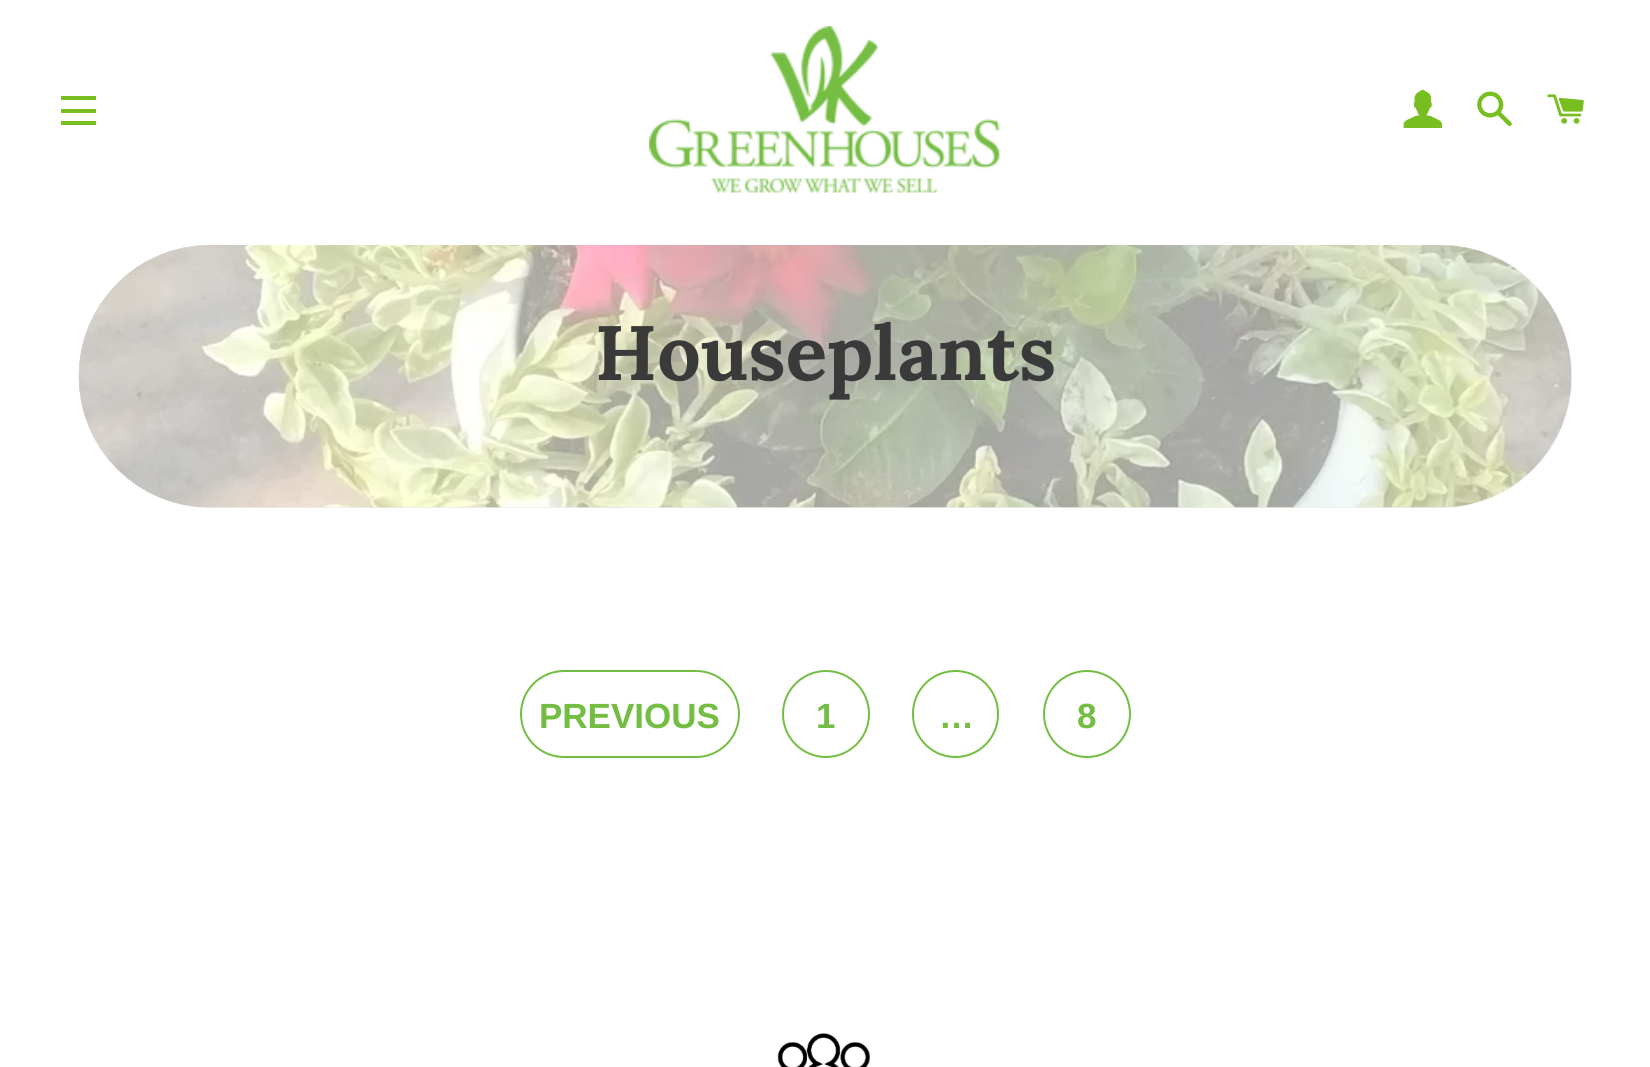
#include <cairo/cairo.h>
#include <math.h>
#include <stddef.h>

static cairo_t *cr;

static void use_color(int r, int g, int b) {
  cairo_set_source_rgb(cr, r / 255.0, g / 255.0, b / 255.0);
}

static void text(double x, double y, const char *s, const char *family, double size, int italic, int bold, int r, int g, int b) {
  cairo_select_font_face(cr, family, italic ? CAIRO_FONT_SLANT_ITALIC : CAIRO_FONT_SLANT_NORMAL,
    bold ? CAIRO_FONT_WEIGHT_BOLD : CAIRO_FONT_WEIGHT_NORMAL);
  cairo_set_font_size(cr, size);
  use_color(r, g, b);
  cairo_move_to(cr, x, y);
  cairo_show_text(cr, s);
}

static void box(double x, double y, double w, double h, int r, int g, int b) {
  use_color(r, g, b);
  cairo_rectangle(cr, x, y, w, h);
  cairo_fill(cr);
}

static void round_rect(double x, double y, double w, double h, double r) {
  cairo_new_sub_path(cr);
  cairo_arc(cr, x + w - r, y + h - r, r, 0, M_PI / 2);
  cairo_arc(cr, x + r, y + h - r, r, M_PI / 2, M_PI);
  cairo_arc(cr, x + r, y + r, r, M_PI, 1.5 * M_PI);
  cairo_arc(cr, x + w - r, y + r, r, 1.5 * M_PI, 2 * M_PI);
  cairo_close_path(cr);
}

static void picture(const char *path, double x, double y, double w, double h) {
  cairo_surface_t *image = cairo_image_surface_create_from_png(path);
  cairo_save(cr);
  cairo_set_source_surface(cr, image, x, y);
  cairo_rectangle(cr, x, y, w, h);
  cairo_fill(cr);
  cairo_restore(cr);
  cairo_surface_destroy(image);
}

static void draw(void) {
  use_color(255, 255, 255);
  cairo_paint(cr);
  box(61, 96, 35, 4, 120, 190, 33);
  box(61, 109, 35, 4, 120, 190, 33);
  box(61, 121, 35, 4, 120, 190, 33);
  picture("img_01.png", 649, 26, 351, 167);
  picture("img_02.png", 1403, 89, 39, 39);
  picture("img_03.png", 1477, 91, 35, 35);
  picture("img_04.png", 1547, 94, 37, 30);
  picture("img_05.png", 78, 245, 1494, 263);
  picture("img_06.png", 78, 245, 1494, 263);
  use_color(237, 237, 237);
  round_rect(79, 245, 1493, 263, 131.5);
  cairo_fill(cr);
  picture("img_07.png", 78, 245, 1494, 263);
  round_rect(521, 671, 218, 86, 43);
  use_color(116, 189, 67);
  cairo_stroke(cr);
  cairo_arc(cr, 826, 714, 43, 0, 2 * M_PI);
  cairo_stroke(cr);
  round_rect(913, 671, 85, 86, 42.5);
  cairo_stroke(cr);
  cairo_arc(cr, 1087, 714, 43, 0, 2 * M_PI);
  cairo_stroke(cr);
  picture("img_08.png", 777, 1033, 93, 34);
  text(595, 380, "Houseplants", "Lora", 77, 0, 1, 58, 58, 58);
  text(539, 728, "PREVIOUS", "Liberation Sans", 35, 0, 1, 116, 189, 67);
  text(816, 728, "1", "Liberation Sans", 35, 0, 1, 116, 189, 67);
  text(939, 728, "…", "Liberation Sans", 35, 0, 1, 116, 189, 67);
  text(1077, 728, "8", "Liberation Sans", 35, 0, 1, 116, 189, 67);
}

int main(void) {
  cairo_surface_t *surface = cairo_image_surface_create(CAIRO_FORMAT_RGB24, 1650, 1067);
  cr = cairo_create(surface);
  cairo_font_options_t *options = cairo_font_options_create();
  cairo_font_options_set_hint_metrics(options, CAIRO_HINT_METRICS_OFF);
  cairo_font_options_set_hint_style(options, CAIRO_HINT_STYLE_NONE);
  cairo_set_font_options(cr, options);
  cairo_set_miter_limit(cr, 4);
  draw();
  cairo_surface_write_to_png(surface, "out.png");
  cairo_font_options_destroy(options);
  cairo_destroy(cr);
  cairo_surface_destroy(surface);
  return 0;
}
